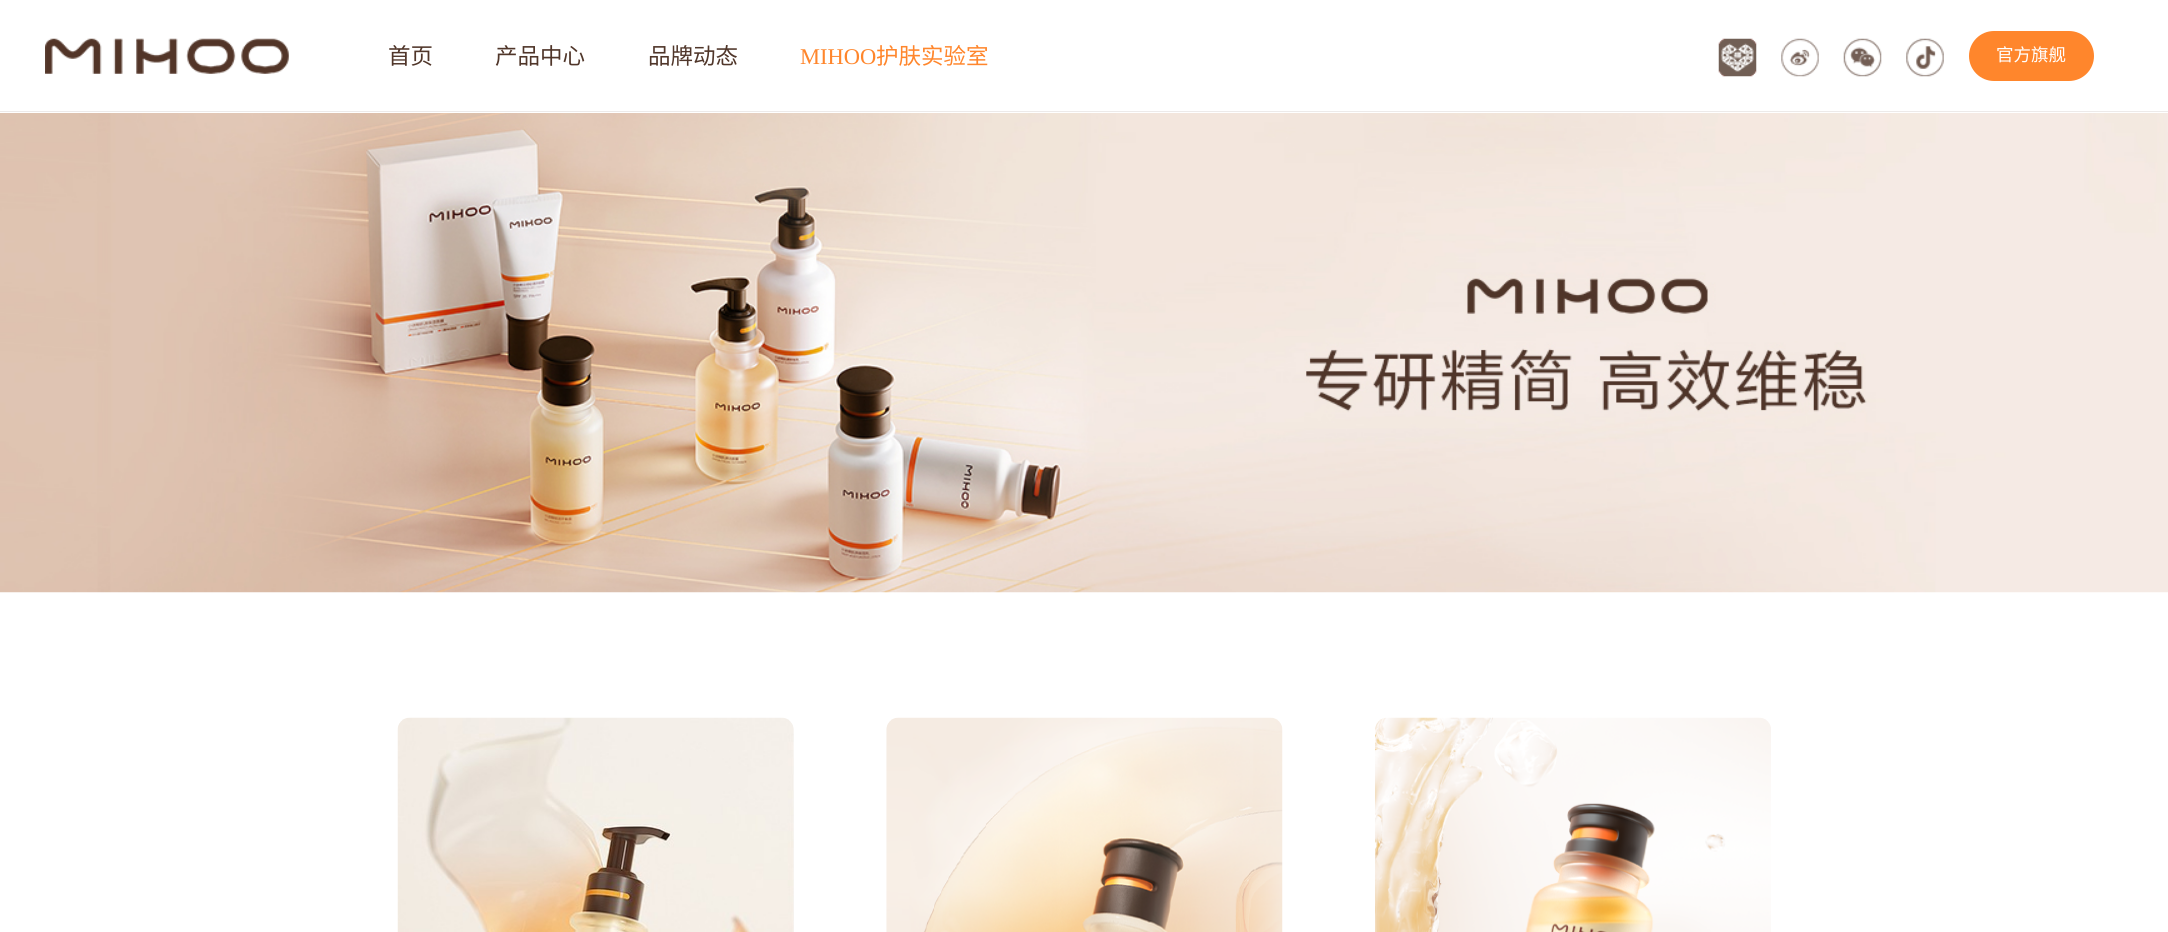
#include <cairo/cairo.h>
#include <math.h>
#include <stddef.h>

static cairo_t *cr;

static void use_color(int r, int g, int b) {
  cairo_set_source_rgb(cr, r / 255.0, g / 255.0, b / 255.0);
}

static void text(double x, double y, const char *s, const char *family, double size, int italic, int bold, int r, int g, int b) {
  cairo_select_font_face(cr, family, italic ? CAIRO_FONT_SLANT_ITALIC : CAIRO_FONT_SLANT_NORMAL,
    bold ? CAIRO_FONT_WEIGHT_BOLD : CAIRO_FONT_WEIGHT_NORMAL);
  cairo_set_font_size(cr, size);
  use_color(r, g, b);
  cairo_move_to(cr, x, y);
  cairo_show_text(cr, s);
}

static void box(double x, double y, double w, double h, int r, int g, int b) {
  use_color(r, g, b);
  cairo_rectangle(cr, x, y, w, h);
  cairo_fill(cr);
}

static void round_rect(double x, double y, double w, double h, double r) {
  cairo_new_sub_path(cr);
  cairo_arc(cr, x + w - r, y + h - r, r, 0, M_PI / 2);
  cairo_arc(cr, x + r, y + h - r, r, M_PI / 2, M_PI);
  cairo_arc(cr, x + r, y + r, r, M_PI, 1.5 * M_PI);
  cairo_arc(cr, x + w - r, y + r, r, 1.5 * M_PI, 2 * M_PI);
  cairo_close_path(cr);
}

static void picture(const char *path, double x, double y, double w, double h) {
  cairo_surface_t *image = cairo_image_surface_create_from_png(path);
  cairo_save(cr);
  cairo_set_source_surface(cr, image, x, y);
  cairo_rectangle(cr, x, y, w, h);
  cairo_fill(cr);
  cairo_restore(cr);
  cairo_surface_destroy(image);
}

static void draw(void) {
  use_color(255, 255, 255);
  cairo_paint(cr);
  box(0, 111, 2168, 1, 237, 234, 233);
  picture("img_01.png", 45, 38, 244, 36);
  picture("img_02.png", 1718, 38, 39, 39);
  picture("img_03.png", 1781, 38, 38, 39);
  picture("img_04.png", 1843, 38, 39, 39);
  picture("img_05.png", 1906, 38, 38, 39);
  use_color(255, 134, 44);
  round_rect(1969, 31, 125, 50, 25);
  cairo_fill(cr);
  picture("img_06.png", 0, 113, 2168, 480);
  picture("img_07.png", 397, 717, 397, 215);
  picture("img_08.png", 886, 717, 397, 215);
  picture("img_09.png", 1375, 717, 396, 215);
  text(388, 64, "首页", "Noto Sans CJK SC", 22.5, 0, 0, 80, 54, 42);
  text(495, 64, "产品中心", "Noto Sans CJK SC", 22.5, 0, 0, 80, 54, 42);
  text(648, 64, "品牌动态", "Noto Sans CJK SC", 22.5, 0, 0, 80, 54, 42);
  text(800, 64, "MIHOO", "Liberation Serif", 22.5, 0, 0, 255, 134, 44);
  text(876, 64, "护肤实验室", "Noto Sans CJK SC", 22.5, 0, 0, 255, 134, 44);
  text(1996, 61, "官方旗舰", "Noto Sans CJK SC", 17.5, 0, 0, 255, 255, 255);
}

int main(void) {
  cairo_surface_t *surface = cairo_image_surface_create(CAIRO_FORMAT_RGB24, 2168, 932);
  cr = cairo_create(surface);
  cairo_font_options_t *options = cairo_font_options_create();
  cairo_font_options_set_hint_metrics(options, CAIRO_HINT_METRICS_OFF);
  cairo_font_options_set_hint_style(options, CAIRO_HINT_STYLE_NONE);
  cairo_set_font_options(cr, options);
  cairo_set_miter_limit(cr, 4);
  draw();
  cairo_surface_write_to_png(surface, "out.png");
  cairo_font_options_destroy(options);
  cairo_destroy(cr);
  cairo_surface_destroy(surface);
  return 0;
}
